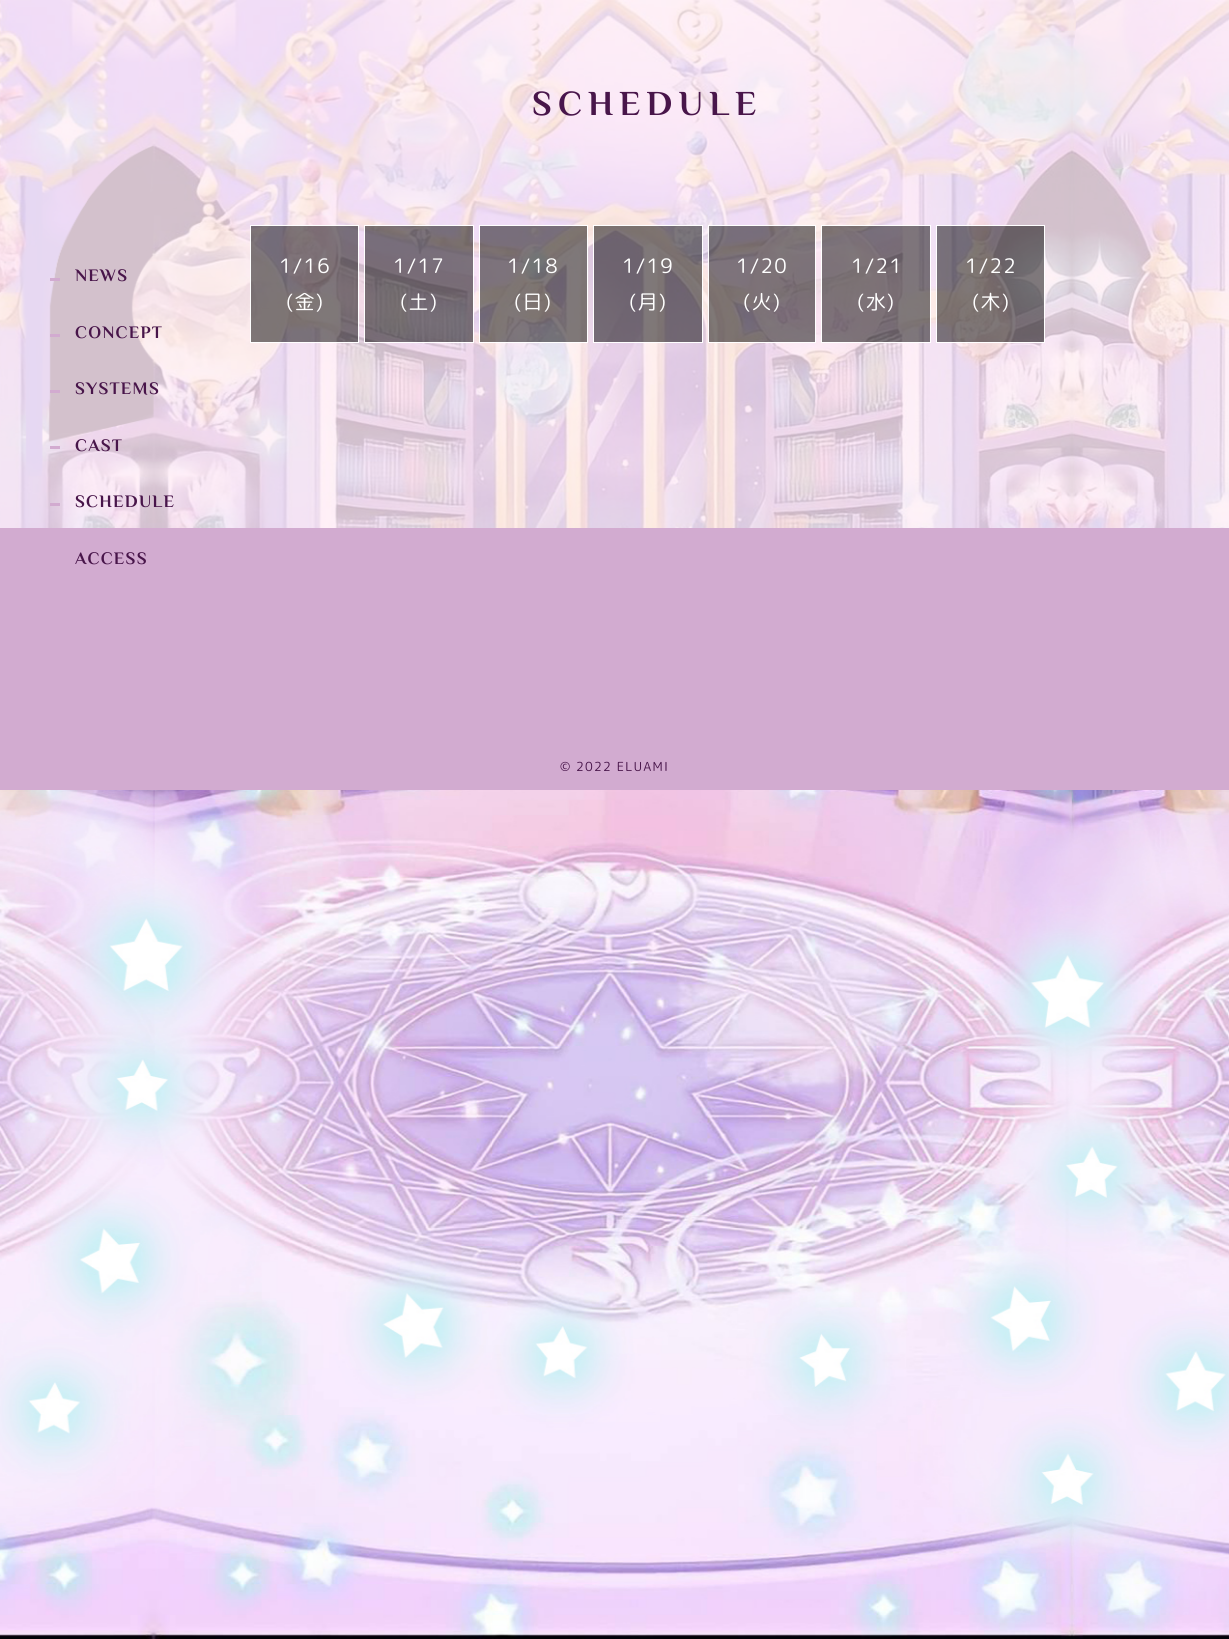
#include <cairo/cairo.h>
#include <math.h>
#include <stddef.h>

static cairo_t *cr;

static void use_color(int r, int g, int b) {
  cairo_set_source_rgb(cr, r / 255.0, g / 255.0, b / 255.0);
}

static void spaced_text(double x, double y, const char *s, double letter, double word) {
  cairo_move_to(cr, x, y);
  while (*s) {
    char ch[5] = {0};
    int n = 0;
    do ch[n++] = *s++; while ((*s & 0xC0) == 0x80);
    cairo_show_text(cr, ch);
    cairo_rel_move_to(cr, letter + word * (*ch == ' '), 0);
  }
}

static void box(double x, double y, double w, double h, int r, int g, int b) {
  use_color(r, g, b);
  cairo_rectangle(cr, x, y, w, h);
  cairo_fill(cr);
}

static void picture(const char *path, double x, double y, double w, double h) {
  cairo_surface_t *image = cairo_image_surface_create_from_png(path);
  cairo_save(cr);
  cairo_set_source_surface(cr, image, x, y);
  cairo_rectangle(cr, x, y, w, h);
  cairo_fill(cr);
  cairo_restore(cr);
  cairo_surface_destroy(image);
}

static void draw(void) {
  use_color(255, 255, 255);
  cairo_paint(cr);
  picture("img_01.png", 0, 0, 1229, 1639);
  cairo_set_source_rgba(cr, 1, 0.929, 0.961, 0.75);
  cairo_rectangle(cr, 0, 0, 1229, 528);
  cairo_fill(cr);
  box(50, 278, 10, 3, 210, 171, 208);
  box(50, 334, 10, 3, 210, 171, 208);
  box(50, 390, 10, 3, 210, 171, 208);
  box(50, 446, 10, 3, 210, 171, 208);
  box(50, 503, 10, 3, 210, 171, 208);
  cairo_set_source_rgba(cr, 0, 0, 0, 0.5);
  cairo_rectangle(cr, 250.5, 225.5, 108, 117);
  cairo_fill_preserve(cr);
  use_color(255, 255, 255);
  cairo_set_line_width(cr, 1);
  cairo_stroke(cr);
  cairo_set_source_rgba(cr, 0, 0, 0, 0.5);
  cairo_rectangle(cr, 364.5, 225.5, 109, 117);
  cairo_fill_preserve(cr);
  use_color(255, 255, 255);
  cairo_stroke(cr);
  cairo_set_source_rgba(cr, 0, 0, 0, 0.5);
  cairo_rectangle(cr, 479.5, 225.5, 108, 117);
  cairo_fill_preserve(cr);
  use_color(255, 255, 255);
  cairo_stroke(cr);
  cairo_set_source_rgba(cr, 0, 0, 0, 0.5);
  cairo_rectangle(cr, 593.5, 225.5, 109, 117);
  cairo_fill_preserve(cr);
  use_color(255, 255, 255);
  cairo_stroke(cr);
  cairo_set_source_rgba(cr, 0, 0, 0, 0.5);
  cairo_rectangle(cr, 708.5, 225.5, 107, 117);
  cairo_fill_preserve(cr);
  use_color(255, 255, 255);
  cairo_stroke(cr);
  cairo_set_source_rgba(cr, 0, 0, 0, 0.5);
  cairo_rectangle(cr, 821.5, 225.5, 109, 117);
  cairo_fill_preserve(cr);
  use_color(255, 255, 255);
  cairo_stroke(cr);
  cairo_set_source_rgba(cr, 0, 0, 0, 0.5);
  cairo_rectangle(cr, 936.5, 225.5, 108, 117);
  cairo_fill_preserve(cr);
  use_color(255, 255, 255);
  cairo_stroke(cr);
  box(0, 528, 1229, 262, 210, 171, 208);
  cairo_select_font_face(cr, "El Messiri", CAIRO_FONT_SLANT_NORMAL, CAIRO_FONT_WEIGHT_BOLD);
  cairo_set_font_size(cr, 17.5);
  use_color(72, 21, 74);
  spaced_text(75, 281, "NEWS", 1.25, 0);
  spaced_text(75, 338, "CONCEPT", 1.25, 0);
  spaced_text(75, 394, "SYSTEMS", 1.25, 0);
  spaced_text(75, 451, "CAST", 1.25, 0);
  spaced_text(75, 507, "SCHEDULE", 1.25, 0);
  spaced_text(75, 564, "ACCESS", 1.25, 0);
  cairo_set_font_size(cr, 35);
  spaced_text(532, 115, "SCHEDULE", 6.25, 0);
  cairo_select_font_face(cr, "Rounded Mplus 1c", CAIRO_FONT_SLANT_NORMAL, CAIRO_FONT_WEIGHT_NORMAL);
  cairo_set_font_size(cr, 20);
  use_color(255, 255, 255);
  spaced_text(279, 273, "1/16", 1.25, 0);
  spaced_text(286, 309, "(金)", 1.25, 0);
  spaced_text(393, 273, "1/17", 1.25, 0);
  spaced_text(400, 309, "(土)", 1.25, 0);
  spaced_text(507, 273, "1/18", 1.25, 0);
  spaced_text(514, 309, "(日)", 1.25, 0);
  spaced_text(622, 273, "1/19", 1.25, 0);
  spaced_text(629, 309, "(月)", 1.25, 0);
  spaced_text(736, 273, "1/20", 1.25, 0);
  spaced_text(743, 309, "(火)", 1.25, 0);
  spaced_text(851, 273, "1/21", 1.25, 0);
  spaced_text(857, 309, "(水)", 1.25, 0);
  spaced_text(965, 273, "1/22", 1.25, 0);
  spaced_text(972, 309, "(木)", 1.25, 0);
  cairo_set_font_size(cr, 12.5);
  use_color(72, 21, 74);
  spaced_text(560, 771, "© 2022 ELUAMI", 1.25, 0);
}

int main(void) {
  cairo_surface_t *surface = cairo_image_surface_create(CAIRO_FORMAT_RGB24, 1229, 1639);
  cr = cairo_create(surface);
  cairo_font_options_t *options = cairo_font_options_create();
  cairo_font_options_set_hint_metrics(options, CAIRO_HINT_METRICS_OFF);
  cairo_font_options_set_hint_style(options, CAIRO_HINT_STYLE_NONE);
  cairo_set_font_options(cr, options);
  cairo_set_miter_limit(cr, 4);
  draw();
  cairo_surface_write_to_png(surface, "out.png");
  cairo_font_options_destroy(options);
  cairo_destroy(cr);
  cairo_surface_destroy(surface);
  return 0;
}
